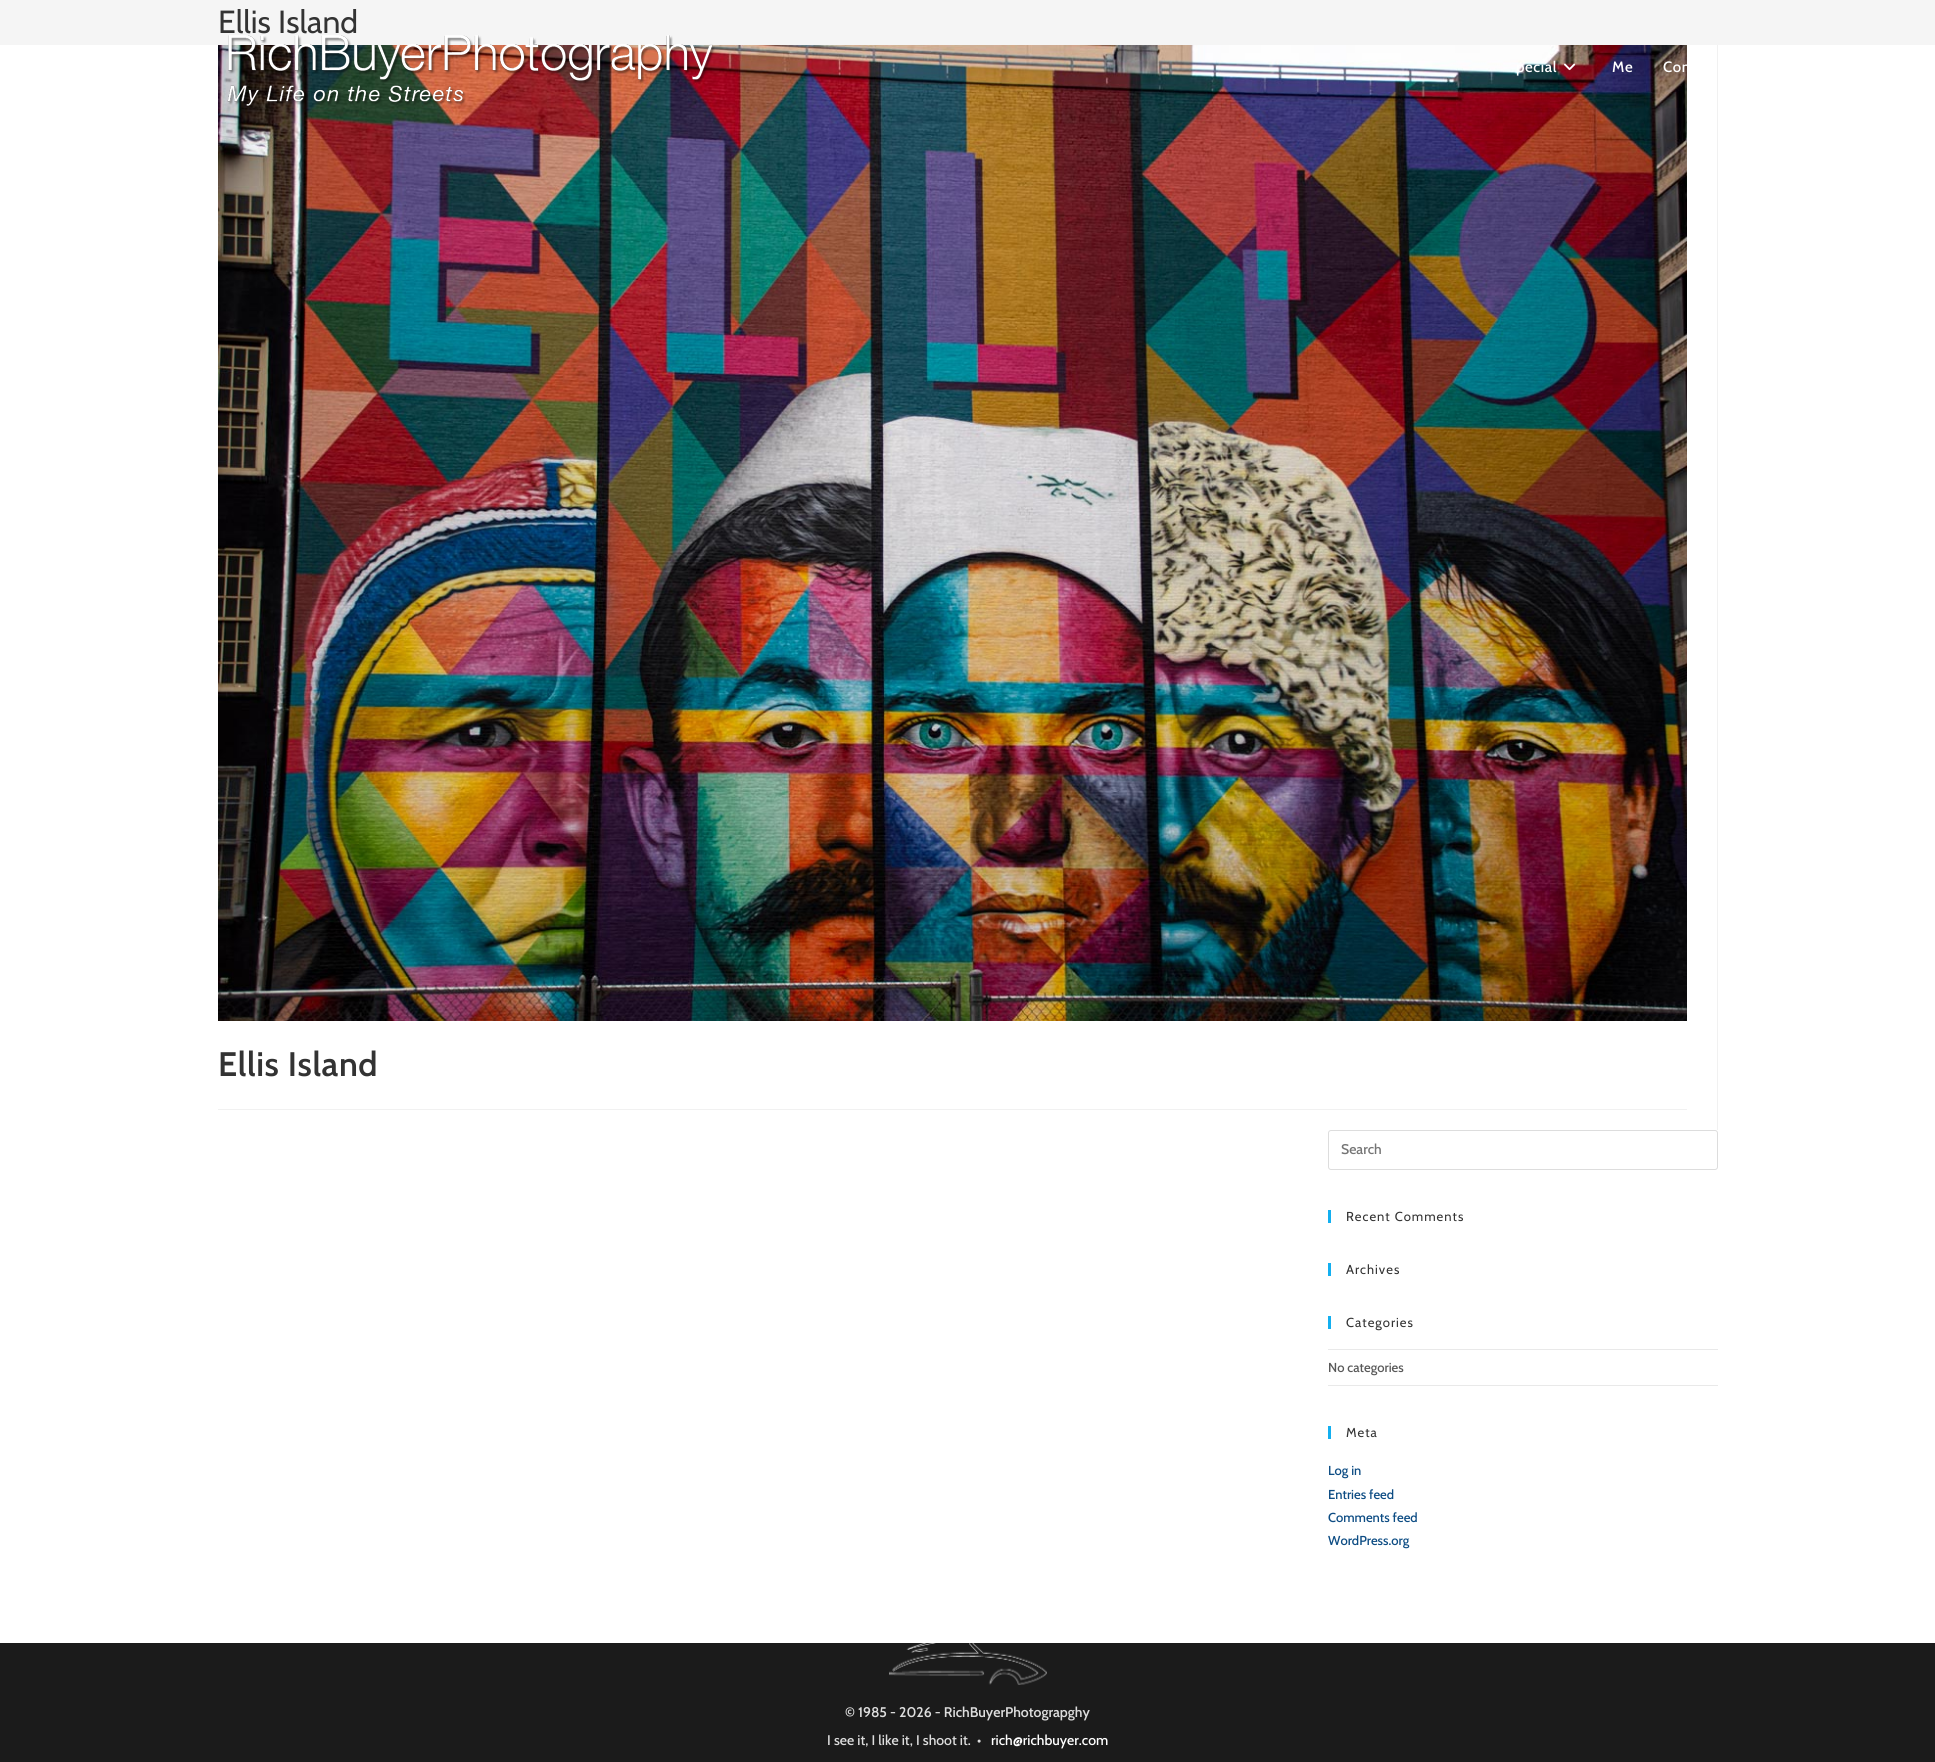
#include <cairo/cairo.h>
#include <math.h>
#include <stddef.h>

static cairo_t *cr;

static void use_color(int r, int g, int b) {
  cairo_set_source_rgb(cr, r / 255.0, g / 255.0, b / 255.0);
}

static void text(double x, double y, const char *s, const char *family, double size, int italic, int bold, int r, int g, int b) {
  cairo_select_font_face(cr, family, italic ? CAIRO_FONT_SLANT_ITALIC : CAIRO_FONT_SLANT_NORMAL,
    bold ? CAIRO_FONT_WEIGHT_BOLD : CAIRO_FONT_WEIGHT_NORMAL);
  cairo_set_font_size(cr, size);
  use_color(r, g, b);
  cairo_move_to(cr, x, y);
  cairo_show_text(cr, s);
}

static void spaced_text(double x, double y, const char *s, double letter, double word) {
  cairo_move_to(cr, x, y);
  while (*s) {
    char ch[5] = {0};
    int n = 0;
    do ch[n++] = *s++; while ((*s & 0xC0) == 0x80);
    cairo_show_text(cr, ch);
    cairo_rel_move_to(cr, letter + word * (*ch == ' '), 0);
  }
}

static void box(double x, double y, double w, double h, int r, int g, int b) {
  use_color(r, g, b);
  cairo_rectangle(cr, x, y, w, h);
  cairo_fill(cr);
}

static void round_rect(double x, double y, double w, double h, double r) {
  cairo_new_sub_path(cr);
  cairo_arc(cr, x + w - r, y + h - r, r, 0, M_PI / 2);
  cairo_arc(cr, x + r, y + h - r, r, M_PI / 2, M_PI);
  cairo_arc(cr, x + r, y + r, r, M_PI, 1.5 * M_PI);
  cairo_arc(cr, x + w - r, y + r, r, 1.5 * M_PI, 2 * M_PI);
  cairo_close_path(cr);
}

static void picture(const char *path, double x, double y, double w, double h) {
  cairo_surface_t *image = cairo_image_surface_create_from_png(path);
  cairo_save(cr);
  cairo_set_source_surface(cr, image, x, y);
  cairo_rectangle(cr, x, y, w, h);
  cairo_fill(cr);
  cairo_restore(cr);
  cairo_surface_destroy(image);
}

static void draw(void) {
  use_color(27, 27, 27);
  cairo_paint(cr);
  box(0, 45, 1935, 1598, 255, 255, 255);
  box(0, 0, 1935, 45, 245, 245, 245);
  box(1717, 45, 1, 1085, 241, 241, 241);
  picture("img_01.png", 218, 45, 1469, 976);
  box(218, 1109, 1469, 1, 241, 241, 241);
  round_rect(1328.5, 1130.5, 389, 39, 2.5);
  use_color(221, 221, 221);
  cairo_set_line_width(cr, 1);
  cairo_stroke(cr);
  box(1328, 1210, 3, 13, 19, 175, 240);
  box(1328, 1263, 3, 13, 19, 175, 240);
  box(1328, 1316, 3, 13, 19, 175, 240);
  box(1328, 1349, 390, 1, 233, 233, 233);
  box(1328, 1385, 390, 1, 233, 233, 233);
  box(1328, 1426, 3, 13, 19, 175, 240);
  picture("img_02.png", 227, 35, 488, 73);
  picture("img_03.png", 1564, 63, 12, 8);
  picture("img_04.png", 889, 1643, 158, 42);
  text(218, 33, "Ellis Island", "Cabin", 32, 0, 0, 51, 51, 51);
  cairo_select_font_face(cr, "Cabin SemiBold", CAIRO_FONT_SLANT_NORMAL, CAIRO_FONT_WEIGHT_NORMAL);
  cairo_set_font_size(cr, 34);
  spaced_text(218, 1076, "Ellis Island", 0.6, 0);
  text(1341, 1154, "Search", "Cabin Medium", 14, 0, 0, 117, 117, 117);
  cairo_select_font_face(cr, "Cabin", CAIRO_FONT_SLANT_NORMAL, CAIRO_FONT_WEIGHT_NORMAL);
  cairo_set_font_size(cr, 13);
  use_color(51, 51, 51);
  spaced_text(1346, 1221, "Recent Comments", 1, 0);
  spaced_text(1346, 1274, "Archives", 1, 0);
  spaced_text(1346, 1327, "Categories", 1, 0);
  text(1328, 1372, "No categories", "Cabin Medium", 13, 0, 0, 89, 89, 89);
  cairo_select_font_face(cr, "Cabin", CAIRO_FONT_SLANT_NORMAL, CAIRO_FONT_WEIGHT_NORMAL);
  use_color(51, 51, 51);
  spaced_text(1346, 1437, "Meta", 1, 0);
  text(1328, 1475, "Log in", "Cabin Medium", 13, 0, 0, 14, 77, 132);
  text(1328, 1499, "Entries feed", "Cabin Medium", 13, 0, 0, 14, 77, 132);
  text(1328, 1522, "Comments feed", "Cabin Medium", 13, 0, 0, 14, 77, 132);
  text(1328, 1545, "WordPress.org", "Cabin Medium", 13, 0, 0, 14, 77, 132);
  cairo_set_font_size(cr, 15);
  use_color(255, 255, 255);
  spaced_text(1516, 72, "pecial", 0.6, 0);
  spaced_text(1612, 72, "Me", 0.6, 0);
  spaced_text(1663, 72, "Con", 0.6, 0);
  text(845, 1717, "© 1985 - 2026 - RichBuyerPhotograpghy", "Cabin SemiBold", 14, 0, 0, 221, 221, 221);
  text(827, 1745, "I see it, I like it, I shoot it.  •", "Cabin Medium", 14, 0, 0, 221, 221, 221);
  text(991, 1745, "rich@richbuyer.com", "Cabin Medium", 14, 0, 0, 255, 255, 255);
}

int main(void) {
  cairo_surface_t *surface = cairo_image_surface_create(CAIRO_FORMAT_RGB24, 1935, 1762);
  cr = cairo_create(surface);
  cairo_font_options_t *options = cairo_font_options_create();
  cairo_font_options_set_hint_metrics(options, CAIRO_HINT_METRICS_OFF);
  cairo_font_options_set_hint_style(options, CAIRO_HINT_STYLE_NONE);
  cairo_set_font_options(cr, options);
  cairo_set_miter_limit(cr, 4);
  draw();
  cairo_surface_write_to_png(surface, "out.png");
  cairo_font_options_destroy(options);
  cairo_destroy(cr);
  cairo_surface_destroy(surface);
  return 0;
}
